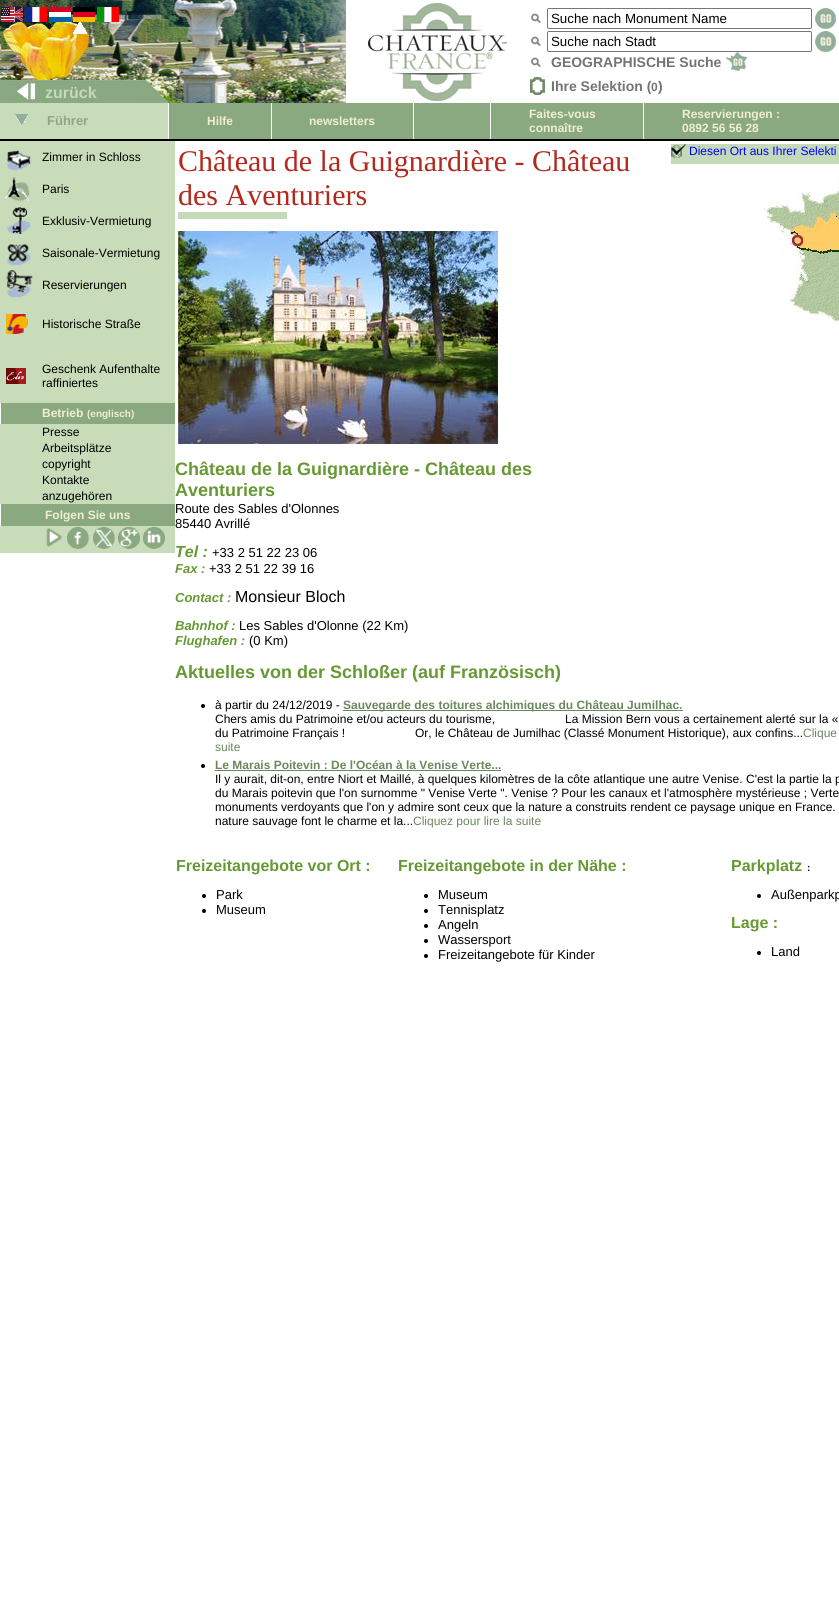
#include <cairo/cairo.h>
#include <math.h>
#include <stddef.h>

static cairo_t *cr;

static void use_color(int r, int g, int b) {
  cairo_set_source_rgb(cr, r / 255.0, g / 255.0, b / 255.0);
}

static void text(double x, double y, const char *s, const char *family, double size, int italic, int bold, int r, int g, int b) {
  cairo_select_font_face(cr, family, italic ? CAIRO_FONT_SLANT_ITALIC : CAIRO_FONT_SLANT_NORMAL,
    bold ? CAIRO_FONT_WEIGHT_BOLD : CAIRO_FONT_WEIGHT_NORMAL);
  cairo_set_font_size(cr, size);
  use_color(r, g, b);
  cairo_move_to(cr, x, y);
  cairo_show_text(cr, s);
}

static void box(double x, double y, double w, double h, int r, int g, int b) {
  use_color(r, g, b);
  cairo_rectangle(cr, x, y, w, h);
  cairo_fill(cr);
}

static void round_rect(double x, double y, double w, double h, double r) {
  cairo_new_sub_path(cr);
  cairo_arc(cr, x + w - r, y + h - r, r, 0, M_PI / 2);
  cairo_arc(cr, x + r, y + h - r, r, M_PI / 2, M_PI);
  cairo_arc(cr, x + r, y + r, r, M_PI, 1.5 * M_PI);
  cairo_arc(cr, x + w - r, y + r, r, 1.5 * M_PI, 2 * M_PI);
  cairo_close_path(cr);
}

static void picture(const char *path, double x, double y, double w, double h) {
  cairo_surface_t *image = cairo_image_surface_create_from_png(path);
  cairo_save(cr);
  cairo_set_source_surface(cr, image, x, y);
  cairo_rectangle(cr, x, y, w, h);
  cairo_fill(cr);
  cairo_restore(cr);
  cairo_surface_destroy(image);
}

static void draw(void) {
  use_color(255, 255, 255);
  cairo_paint(cr);
  picture("img_01.png", 0, 0, 346, 103);
  picture("img_02.png", 1, 7, 22, 15);
  picture("img_03.png", 25, 7, 22, 15);
  picture("img_04.png", 49, 7, 22, 15);
  picture("img_05.png", 73, 7, 22, 15);
  picture("img_06.png", 73, 22, 14, 12);
  picture("img_07.png", 97, 7, 22, 15);
  picture("img_08.png", 368, 3, 139, 98);
  picture("img_09.png", 531, 13, 10, 11);
  round_rect(547.5, 8.5, 264, 20, 1.5);
  use_color(118, 118, 118);
  cairo_set_line_width(cr, 1);
  cairo_stroke(cr);
  picture("img_10.png", 815, 8, 21, 21);
  picture("img_09.png", 531, 36, 10, 11);
  round_rect(547.5, 31.5, 264, 20, 1.5);
  cairo_stroke(cr);
  picture("img_10.png", 815, 31, 21, 21);
  picture("img_09.png", 531, 57, 10, 11);
  picture("img_11.png", 726, 52, 21, 19);
  picture("img_12.png", 530, 77, 15, 18);
  box(0, 103, 168, 36, 201, 220, 186);
  picture("img_13.png", 15, 114, 13, 11);
  box(169, 103, 102, 36, 139, 169, 129);
  box(272, 103, 141, 36, 139, 169, 129);
  box(414, 103, 76, 36, 139, 169, 129);
  box(491, 103, 152, 36, 139, 169, 129);
  box(644, 103, 195, 36, 139, 169, 129);
  box(0, 139, 839, 2, 0, 0, 0);
  box(0, 141, 175, 412, 201, 220, 186);
  picture("img_14.png", 7, 150, 24, 21);
  picture("img_15.png", 5, 177, 26, 25);
  picture("img_16.png", 7, 207, 24, 27);
  picture("img_17.png", 7, 244, 24, 22);
  picture("img_18.png", 6, 270, 27, 28);
  picture("img_19.png", 6, 314, 22, 20);
  picture("img_20.png", 6, 368, 20, 16);
  box(1, 403, 174, 21, 139, 169, 129);
  box(0, 403, 1, 21, 255, 255, 255);
  box(1, 504, 174, 22, 139, 169, 129);
  box(0, 504, 1, 22, 255, 255, 255);
  picture("img_21.png", 46, 528, 16, 19);
  picture("img_22.png", 67, 527, 22, 22);
  picture("img_23.png", 93, 527, 22, 22);
  picture("img_24.png", 118, 527, 22, 22);
  picture("img_25.png", 143, 527, 22, 22);
  box(178, 212, 109, 7, 197, 218, 184);
  picture("img_26.png", 178, 231, 320, 213);
  box(671, 144, 168, 20, 197, 218, 185);
  picture("img_27.png", 671, 144, 15, 14);
  picture("img_28.png", 764, 176, 75, 148);
  use_color(0, 0, 0);
  cairo_arc(cr, 203, 706, 2, 0, 2 * M_PI);
  cairo_fill(cr);
  box(343, 710, 340, 1, 106, 135, 94);
  use_color(0, 0, 0);
  cairo_arc(cr, 203, 766, 2, 0, 2 * M_PI);
  cairo_fill(cr);
  box(215, 770, 286, 1, 106, 135, 94);
  use_color(0, 0, 0);
  cairo_arc(cr, 204, 896, 2, 0, 2 * M_PI);
  cairo_fill(cr);
  cairo_arc(cr, 204, 911, 2, 0, 2 * M_PI);
  cairo_fill(cr);
  cairo_arc(cr, 426, 896, 2, 0, 2 * M_PI);
  cairo_fill(cr);
  cairo_arc(cr, 426, 911, 2, 0, 2 * M_PI);
  cairo_fill(cr);
  cairo_arc(cr, 426, 926, 2, 0, 2 * M_PI);
  cairo_fill(cr);
  cairo_arc(cr, 426, 941, 2, 0, 2 * M_PI);
  cairo_fill(cr);
  cairo_arc(cr, 426, 956, 2, 0, 2 * M_PI);
  cairo_fill(cr);
  cairo_arc(cr, 759, 896, 2, 0, 2 * M_PI);
  cairo_fill(cr);
  cairo_arc(cr, 759, 953, 2, 0, 2 * M_PI);
  cairo_fill(cr);
  text(45, 98, "zurück", "Liberation Sans", 16, 0, 1, 197, 218, 184);
  text(551, 23, "Suche nach Monument Name", "Liberation Sans", 13.3, 0, 0, 0, 0, 0);
  text(551, 46, "Suche nach Stadt", "Liberation Sans", 13.3, 0, 0, 0, 0, 0);
  text(551, 67, "GEOGRAPHISCHE Suche", "Liberation Sans", 14, 0, 1, 115, 116, 119);
  text(551, 91, "Ihre Selektion (", "Liberation Sans", 14, 0, 1, 115, 116, 119);
  text(651, 91, "0", "Liberation Sans", 12, 0, 1, 115, 116, 119);
  text(658, 91, ")", "Liberation Sans", 14, 0, 1, 115, 116, 119);
  text(47, 125, "Führer", "Liberation Sans", 13, 0, 1, 139, 169, 129);
  text(207, 125, "Hilfe", "Liberation Sans", 12, 0, 1, 239, 239, 208);
  text(309, 125, "newsletters", "Liberation Sans", 12, 0, 1, 239, 239, 208);
  text(529, 118, "Faites-vous", "Liberation Sans", 12, 0, 1, 239, 239, 208);
  text(529, 132, "connaître", "Liberation Sans", 12, 0, 1, 239, 239, 208);
  text(682, 118, "Reservierungen :", "Liberation Sans", 12, 0, 1, 239, 239, 208);
  text(682, 132, "0892 56 56 28", "Liberation Sans", 12, 0, 1, 239, 239, 208);
  text(42, 161, "Zimmer in Schloss", "Liberation Sans", 12, 0, 0, 0, 0, 0);
  text(42, 193, "Paris", "Liberation Sans", 12, 0, 0, 0, 0, 0);
  text(42, 225, "Exklusiv-Vermietung", "Liberation Sans", 12, 0, 0, 0, 0, 0);
  text(42, 257, "Saisonale-Vermietung", "Liberation Sans", 12, 0, 0, 0, 0, 0);
  text(42, 289, "Reservierungen", "Liberation Sans", 12, 0, 0, 0, 0, 0);
  text(42, 328, "Historische Straße", "Liberation Sans", 12, 0, 0, 0, 0, 0);
  text(42, 373, "Geschenk Aufenthalte", "Liberation Sans", 12, 0, 0, 0, 0, 0);
  text(42, 387, "raffiniertes", "Liberation Sans", 12, 0, 0, 0, 0, 0);
  text(42, 417, "Betrieb", "Liberation Sans", 12, 0, 1, 239, 239, 208);
  text(87, 417, "(englisch)", "Liberation Sans", 10, 0, 1, 239, 239, 208);
  text(42, 436, "Presse", "Liberation Sans", 12, 0, 0, 0, 0, 0);
  text(42, 452, "Arbeitsplätze", "Liberation Sans", 12, 0, 0, 0, 0, 0);
  text(42, 468, "copyright", "Liberation Sans", 12, 0, 0, 0, 0, 0);
  text(42, 484, "Kontakte", "Liberation Sans", 12, 0, 0, 0, 0, 0);
  text(42, 500, "anzugehören", "Liberation Sans", 12, 0, 0, 0, 0, 0);
  text(45, 519, "Folgen Sie uns", "Liberation Sans", 12, 0, 1, 239, 239, 208);
  text(178, 171, "Château de la Guignardière - Château", "Liberation Serif", 30, 0, 0, 179, 41, 30);
  text(178, 205, "des Aventuriers", "Liberation Serif", 30, 0, 0, 179, 41, 30);
  text(689, 155, "Diesen Ort aus Ihrer Selekti", "Liberation Sans", 12, 0, 0, 0, 0, 255);
  text(175, 475, "Château de la Guignardière - Château des", "Liberation Sans", 18, 0, 1, 102, 153, 51);
  text(175, 496, "Aventuriers", "Liberation Sans", 18, 0, 1, 102, 153, 51);
  text(175, 513, "Route des Sables d'Olonnes", "Liberation Sans", 13, 0, 0, 0, 0, 0);
  text(175, 528, "85440 Avrillé", "Liberation Sans", 13, 0, 0, 0, 0, 0);
  text(175, 557, "Tel :", "Liberation Sans", 16, 1, 1, 102, 153, 51);
  text(212, 557, "+33 2 51 22 23 06", "Liberation Sans", 13, 0, 0, 0, 0, 0);
  text(175, 573, "Fax :", "Liberation Sans", 13, 1, 1, 102, 153, 51);
  text(209, 573, "+33 2 51 22 39 16", "Liberation Sans", 13, 0, 0, 0, 0, 0);
  text(175, 602, "Contact :", "Liberation Sans", 13, 1, 1, 102, 153, 51);
  text(235, 602, "Monsieur Bloch", "Liberation Sans", 16, 0, 0, 0, 0, 0);
  text(175, 630, "Bahnhof :", "Liberation Sans", 13, 1, 1, 102, 153, 51);
  text(239, 630, "Les Sables d'Olonne (22 Km)", "Liberation Sans", 13, 0, 0, 0, 0, 0);
  text(175, 645, "Flughafen :", "Liberation Sans", 13, 1, 1, 102, 153, 51);
  text(249, 645, "(0 Km)", "Liberation Sans", 13, 0, 0, 0, 0, 0);
  text(175, 678, "Aktuelles von der Schloßer (auf Französisch)", "Liberation Sans", 18, 0, 1, 102, 153, 51);
  text(215, 709, "à partir du 24/12/2019 -", "Liberation Sans", 12, 0, 0, 0, 0, 0);
  text(343, 709, "Sauvegarde des toitures alchimiques du Château Jumilhac.", "Liberation Sans", 12, 0, 1, 106, 135, 94);
  text(215, 723, "Chers amis du Patrimoine et/ou acteurs du tourisme,", "Liberation Sans", 12, 0, 0, 0, 0, 0);
  text(565, 723, "La Mission Bern vous a certainement alerté sur la «", "Liberation Sans", 12, 0, 0, 0, 0, 0);
  text(215, 737, "du Patrimoine Français !", "Liberation Sans", 12, 0, 0, 0, 0, 0);
  text(415, 737, "Or, le Château de Jumilhac (Classé Monument Historique), aux confins...", "Liberation Sans", 12, 0, 0, 0, 0, 0);
  text(803, 737, "Clique", "Liberation Sans", 12, 0, 0, 106, 135, 94);
  text(215, 751, "suite", "Liberation Sans", 12, 0, 0, 106, 135, 94);
  text(215, 769, "Le Marais Poitevin : De l'Océan à la Venise Verte...", "Liberation Sans", 12, 0, 1, 106, 135, 94);
  text(215, 783, "Il y aurait, dit-on, entre Niort et Maillé, à quelques kilomètres de la côte atlantique une autre Venise. C'est la partie la p", "Liberation Sans", 12, 0, 0, 0, 0, 0);
  text(215, 797, "du Marais poitevin que l'on surnomme \" Venise Verte \". Venise ? Pour les canaux et l'atmosphère mystérieuse ; Verte", "Liberation Sans", 12, 0, 0, 0, 0, 0);
  text(215, 811, "monuments verdoyants que l'on y admire sont ceux que la nature a construits rendent ce paysage unique en France.", "Liberation Sans", 12, 0, 0, 0, 0, 0);
  text(215, 825, "nature sauvage font le charme et la...", "Liberation Sans", 12, 0, 0, 0, 0, 0);
  text(413, 825, "Cliquez pour lire la suite", "Liberation Sans", 12, 0, 0, 106, 135, 94);
  text(176, 871, "Freizeitangebote vor Ort :", "Liberation Sans", 16, 0, 1, 102, 153, 51);
  text(216, 899, "Park", "Liberation Sans", 13, 0, 0, 0, 0, 0);
  text(216, 914, "Museum", "Liberation Sans", 13, 0, 0, 0, 0, 0);
  text(398, 871, "Freizeitangebote in der Nähe :", "Liberation Sans", 16, 0, 1, 102, 153, 51);
  text(438, 899, "Museum", "Liberation Sans", 13, 0, 0, 0, 0, 0);
  text(438, 914, "Tennisplatz", "Liberation Sans", 13, 0, 0, 0, 0, 0);
  text(438, 929, "Angeln", "Liberation Sans", 13, 0, 0, 0, 0, 0);
  text(438, 944, "Wassersport", "Liberation Sans", 13, 0, 0, 0, 0, 0);
  text(438, 959, "Freizeitangebote für Kinder", "Liberation Sans", 13, 0, 0, 0, 0, 0);
  text(731, 871, "Parkplatz", "Liberation Sans", 16, 0, 1, 102, 153, 51);
  text(807, 871, ":", "Liberation Sans", 10, 0, 1, 0, 0, 0);
  text(771, 899, "Außenparkp", "Liberation Sans", 13, 0, 0, 0, 0, 0);
  text(731, 928, "Lage :", "Liberation Sans", 16, 0, 1, 102, 153, 51);
  text(771, 956, "Land", "Liberation Sans", 13, 0, 0, 0, 0, 0);
}

int main(void) {
  cairo_surface_t *surface = cairo_image_surface_create(CAIRO_FORMAT_RGB24, 839, 1617);
  cr = cairo_create(surface);
  cairo_font_options_t *options = cairo_font_options_create();
  cairo_font_options_set_hint_metrics(options, CAIRO_HINT_METRICS_OFF);
  cairo_font_options_set_hint_style(options, CAIRO_HINT_STYLE_NONE);
  cairo_set_font_options(cr, options);
  cairo_set_miter_limit(cr, 4);
  draw();
  cairo_surface_write_to_png(surface, "out.png");
  cairo_font_options_destroy(options);
  cairo_destroy(cr);
  cairo_surface_destroy(surface);
  return 0;
}
